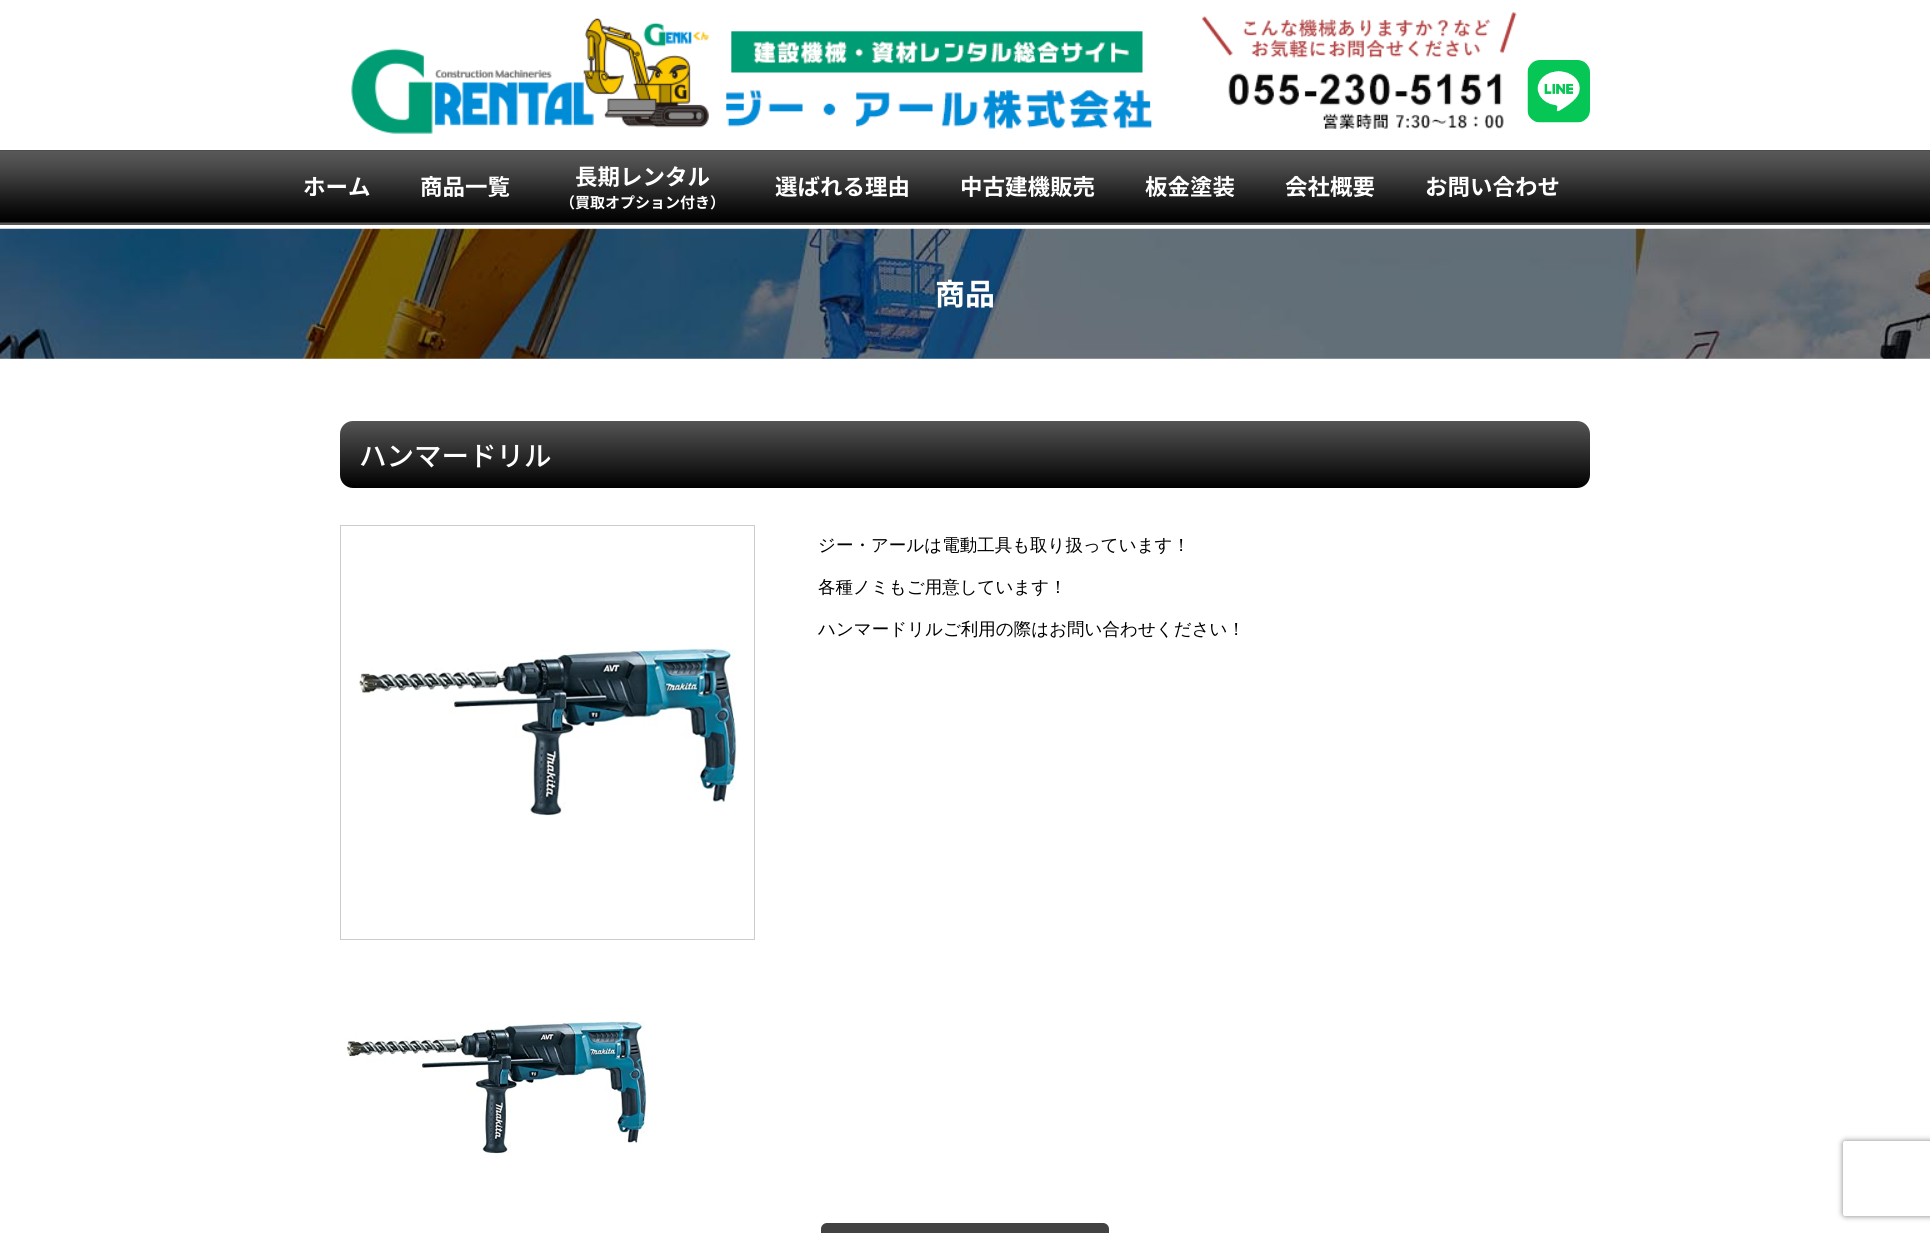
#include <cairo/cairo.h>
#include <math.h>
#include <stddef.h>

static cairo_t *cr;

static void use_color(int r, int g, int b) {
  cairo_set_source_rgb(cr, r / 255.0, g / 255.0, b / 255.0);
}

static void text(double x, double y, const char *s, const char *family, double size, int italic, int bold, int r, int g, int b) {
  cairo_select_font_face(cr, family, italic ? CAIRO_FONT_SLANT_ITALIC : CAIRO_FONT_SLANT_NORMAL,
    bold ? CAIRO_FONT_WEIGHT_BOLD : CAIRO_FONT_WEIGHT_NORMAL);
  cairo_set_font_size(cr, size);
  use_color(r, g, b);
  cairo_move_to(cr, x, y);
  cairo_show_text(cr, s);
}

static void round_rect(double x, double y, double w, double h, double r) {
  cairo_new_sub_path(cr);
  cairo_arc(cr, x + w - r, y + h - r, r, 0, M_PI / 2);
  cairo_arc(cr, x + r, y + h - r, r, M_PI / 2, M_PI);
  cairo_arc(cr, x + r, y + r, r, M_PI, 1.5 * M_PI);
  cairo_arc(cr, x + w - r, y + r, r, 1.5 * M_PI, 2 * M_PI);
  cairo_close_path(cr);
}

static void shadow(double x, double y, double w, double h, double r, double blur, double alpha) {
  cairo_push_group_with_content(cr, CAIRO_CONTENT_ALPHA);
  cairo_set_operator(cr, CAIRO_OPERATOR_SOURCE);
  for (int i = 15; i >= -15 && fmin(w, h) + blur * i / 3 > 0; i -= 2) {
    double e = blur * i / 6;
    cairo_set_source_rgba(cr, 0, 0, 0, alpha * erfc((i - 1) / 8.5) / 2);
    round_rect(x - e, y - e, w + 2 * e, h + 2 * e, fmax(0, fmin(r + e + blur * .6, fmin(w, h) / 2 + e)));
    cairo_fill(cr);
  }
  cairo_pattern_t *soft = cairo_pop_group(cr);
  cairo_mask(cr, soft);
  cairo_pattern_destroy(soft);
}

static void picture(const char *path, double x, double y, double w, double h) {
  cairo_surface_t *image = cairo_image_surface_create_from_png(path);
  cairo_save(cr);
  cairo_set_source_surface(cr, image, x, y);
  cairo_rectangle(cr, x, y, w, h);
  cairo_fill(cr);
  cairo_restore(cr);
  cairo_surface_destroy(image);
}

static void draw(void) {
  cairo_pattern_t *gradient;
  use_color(255, 255, 255);
  cairo_paint(cr);
  picture("img_01.png", 351, 18, 801, 116);
  picture("img_02.png", 1201, 12, 316, 117);
  picture("img_03.png", 1527, 60, 63, 63);
  picture("img_04.png", 0, 150, 1930, 75);
  picture("img_05.png", 0, 228, 1930, 131);
  gradient = cairo_pattern_create_linear(965, 421, 965, 488);
  cairo_pattern_add_color_stop_rgba(gradient, 0, 0.333, 0.333, 0.333, 1);
  cairo_pattern_add_color_stop_rgba(gradient, 1, 0, 0, 0, 1);
  cairo_set_source(cr, gradient);
  cairo_pattern_destroy(gradient);
  round_rect(340, 421, 1250, 67, 13);
  cairo_fill(cr);
  cairo_rectangle(cr, 340.5, 525.5, 414, 414);
  use_color(204, 204, 204);
  cairo_set_line_width(cr, 1);
  cairo_stroke(cr);
  picture("img_06.png", 359, 648, 378, 168);
  picture("img_07.png", 346, 1021, 301, 133);
  use_color(66, 66, 66);
  round_rect(821, 1223, 288, 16, 6);
  cairo_fill(cr);
  cairo_save(cr);
  cairo_set_fill_rule(cr, CAIRO_FILL_RULE_EVEN_ODD);
  cairo_new_path(cr);
  cairo_move_to(cr, 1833, 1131);
  cairo_line_to(cr, 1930, 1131);
  cairo_line_to(cr, 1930, 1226);
  cairo_line_to(cr, 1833, 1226);
  cairo_close_path(cr);
  cairo_move_to(cr, 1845.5, 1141);
  cairo_line_to(cr, 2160.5, 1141);
  cairo_curve_to(cr, 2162, 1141, 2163, 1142, 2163, 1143.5);
  cairo_line_to(cr, 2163, 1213.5);
  cairo_curve_to(cr, 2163, 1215, 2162, 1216, 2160.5, 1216);
  cairo_line_to(cr, 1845.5, 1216);
  cairo_curve_to(cr, 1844, 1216, 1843, 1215, 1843, 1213.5);
  cairo_line_to(cr, 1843, 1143.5);
  cairo_curve_to(cr, 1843, 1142, 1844, 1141, 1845.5, 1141);
  cairo_close_path(cr);
  cairo_clip(cr);
  use_color(128, 128, 128);
  shadow(1843, 1141, 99, 75, 2.5, 3, 1);
  cairo_restore(cr);
  text(303, 195, "ホーム", "Noto Sans JP", 22.5, 0, 1, 255, 255, 255);
  text(420, 195, "商品一覧", "Noto Sans JP", 22.5, 0, 1, 255, 255, 255);
  text(575, 185, "長期レンタル", "Noto Sans JP", 22.5, 0, 1, 255, 255, 255);
  text(560, 208, "（買取オプション付き）", "Noto Sans JP", 15, 0, 1, 255, 255, 255);
  text(775, 195, "選ばれる理由", "Noto Sans JP", 22.5, 0, 1, 255, 255, 255);
  text(960, 195, "中古建機販売", "Noto Sans JP", 22.5, 0, 1, 255, 255, 255);
  text(1145, 195, "板金塗装", "Noto Sans JP", 22.5, 0, 1, 255, 255, 255);
  text(1285, 195, "会社概要", "Noto Sans JP", 22.5, 0, 1, 255, 255, 255);
  text(1425, 195, "お問い合わせ", "Noto Sans JP", 22.5, 0, 1, 255, 255, 255);
  text(935, 305, "商品", "Noto Sans JP", 30, 0, 1, 255, 255, 255);
  text(359, 466, "ハンマードリル", "Noto Sans JP Medium", 27.5, 0, 0, 255, 255, 255);
  text(818, 551, "ジー・アールは電動工具も取り扱っています！", "WenQuanYi Zen Hei Medium", 17.5, 0, 0, 0, 0, 0);
  text(818, 593, "各種ノミもご用意しています！", "WenQuanYi Zen Hei Medium", 17.5, 0, 0, 0, 0, 0);
  text(818, 635, "ハンマードリルご利用の際はお問い合わせください！", "WenQuanYi Zen Hei Medium", 17.5, 0, 0, 0, 0, 0);
}

int main(void) {
  cairo_surface_t *surface = cairo_image_surface_create(CAIRO_FORMAT_RGB24, 1930, 1233);
  cr = cairo_create(surface);
  cairo_font_options_t *options = cairo_font_options_create();
  cairo_font_options_set_hint_metrics(options, CAIRO_HINT_METRICS_OFF);
  cairo_font_options_set_hint_style(options, CAIRO_HINT_STYLE_NONE);
  cairo_set_font_options(cr, options);
  cairo_set_miter_limit(cr, 4);
  draw();
  cairo_surface_write_to_png(surface, "out.png");
  cairo_font_options_destroy(options);
  cairo_destroy(cr);
  cairo_surface_destroy(surface);
  return 0;
}
